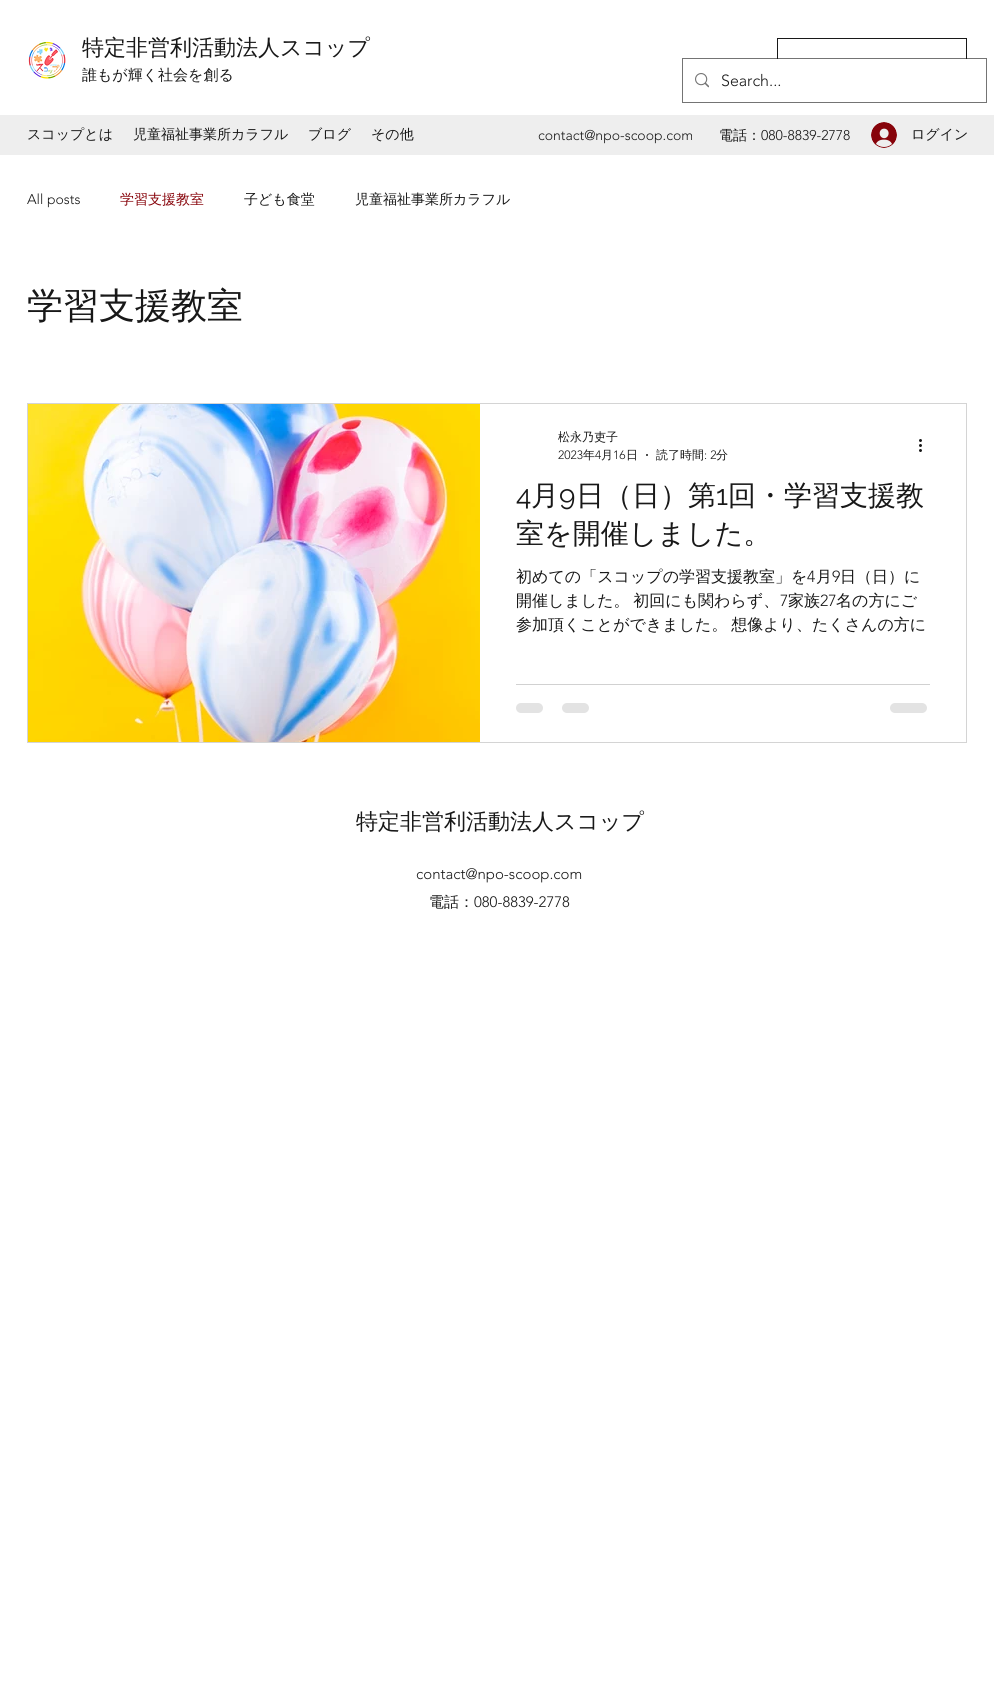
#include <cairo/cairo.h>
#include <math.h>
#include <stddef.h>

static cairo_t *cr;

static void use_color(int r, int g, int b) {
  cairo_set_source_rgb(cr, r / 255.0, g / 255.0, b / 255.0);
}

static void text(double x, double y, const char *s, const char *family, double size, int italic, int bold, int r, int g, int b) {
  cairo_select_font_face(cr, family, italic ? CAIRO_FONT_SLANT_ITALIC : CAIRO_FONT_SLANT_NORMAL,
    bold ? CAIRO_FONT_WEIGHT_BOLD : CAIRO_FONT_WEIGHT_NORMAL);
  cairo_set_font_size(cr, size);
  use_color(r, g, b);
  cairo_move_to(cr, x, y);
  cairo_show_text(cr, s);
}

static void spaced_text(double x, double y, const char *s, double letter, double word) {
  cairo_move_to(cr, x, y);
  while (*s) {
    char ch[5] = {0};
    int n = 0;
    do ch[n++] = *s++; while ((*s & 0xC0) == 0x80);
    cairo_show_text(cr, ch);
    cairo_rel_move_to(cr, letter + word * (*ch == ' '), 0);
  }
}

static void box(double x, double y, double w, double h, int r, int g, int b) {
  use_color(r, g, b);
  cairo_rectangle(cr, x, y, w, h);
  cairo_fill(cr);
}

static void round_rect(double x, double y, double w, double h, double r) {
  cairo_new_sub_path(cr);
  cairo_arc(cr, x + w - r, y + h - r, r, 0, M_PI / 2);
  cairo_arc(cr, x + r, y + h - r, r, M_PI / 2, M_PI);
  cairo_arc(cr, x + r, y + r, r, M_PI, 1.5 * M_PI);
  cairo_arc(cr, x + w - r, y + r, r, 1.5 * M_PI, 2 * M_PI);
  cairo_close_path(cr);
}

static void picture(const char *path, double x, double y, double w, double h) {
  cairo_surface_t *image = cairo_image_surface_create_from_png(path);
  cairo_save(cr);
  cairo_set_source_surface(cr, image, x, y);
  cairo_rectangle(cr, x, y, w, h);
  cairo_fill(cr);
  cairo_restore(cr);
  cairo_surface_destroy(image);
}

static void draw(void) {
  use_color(255, 255, 255);
  cairo_paint(cr);
  picture("img_01.png", 28, 40, 38, 39);
  cairo_rectangle(cr, 777.5, 38.5, 189, 44);
  use_color(24, 24, 24);
  cairo_set_line_width(cr, 1);
  cairo_stroke(cr);
  cairo_rectangle(cr, 682.5, 58.5, 304, 44);
  cairo_set_source_rgba(cr, 0.094, 0.094, 0.094, 0.6);
  cairo_stroke(cr);
  box(777, 59, 190, 24, 255, 255, 255);
  picture("img_02.png", 695, 73, 14, 15);
  box(0, 115, 994, 40, 238, 238, 238);
  picture("img_03.png", 871, 122, 26, 26);
  cairo_rectangle(cr, 27.5, 403.5, 939, 339);
  use_color(212, 212, 212);
  cairo_stroke(cr);
  picture("img_04.png", 28, 404, 452, 338);
  use_color(24, 24, 24);
  cairo_arc(cr, 647, 455, 1, 0, 2 * M_PI);
  cairo_fill(cr);
  picture("img_05.png", 919, 439, 3, 13);
  box(516, 684, 414, 1, 209, 209, 209);
  use_color(227, 227, 227);
  round_rect(516, 703, 27, 10, 5);
  cairo_fill(cr);
  round_rect(562, 703, 27, 10, 5);
  cairo_fill(cr);
  round_rect(890, 703, 37, 10, 5);
  cairo_fill(cr);
  text(82, 55, "特定非営利活動法人スコップ", "WenQuanYi Zen Hei Medium", 22, 0, 0, 24, 24, 24);
  text(82, 80, "誰もが輝く社会を創る", "WenQuanYi Zen Hei Medium", 15, 0, 0, 24, 24, 24);
  text(721, 86, "Search...", "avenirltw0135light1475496 Light", 16, 0, 0, 24, 24, 24);
  text(27, 139, "スコップとは", "WenQuanYi Zen Hei Medium", 14, 0, 0, 24, 24, 24);
  text(133, 139, "児童福祉事業所カラフル", "WenQuanYi Zen Hei Medium", 14, 0, 0, 24, 24, 24);
  text(308, 139, "ブログ", "WenQuanYi Zen Hei Medium", 14, 0, 0, 24, 24, 24);
  text(371, 139, "その他", "WenQuanYi Zen Hei Medium", 14, 0, 0, 24, 24, 24);
  text(538, 140, "contact@npo-scoop.com", "avenirltw0135light1475496 Light", 14, 0, 0, 24, 24, 24);
  text(719, 140, "電話：", "WenQuanYi Zen Hei Medium", 14, 0, 0, 24, 24, 24);
  text(761, 140, "080-8839-2778", "avenirltw0135light1475496 Light", 14, 0, 0, 24, 24, 24);
  text(911, 139, "ログイン", "WenQuanYi Zen Hei Medium", 14, 0, 0, 24, 24, 24);
  text(27, 204, "All posts", "avenirltw0135light1475496 Light", 14, 0, 0, 24, 24, 24);
  text(120, 204, "学習支援教室", "WenQuanYi Zen Hei Medium", 14, 0, 0, 135, 3, 10);
  text(244, 204, "子ども食堂", "WenQuanYi Zen Hei Medium", 14, 0, 0, 24, 24, 24);
  text(355, 204, "児童福祉事業所カラフル", "WenQuanYi Zen Hei Medium", 14, 0, 0, 24, 24, 24);
  text(27, 318, "学習支援教室", "WenQuanYi Zen Hei Medium", 36, 0, 0, 24, 24, 24);
  text(558, 441, "松永乃吏子", "WenQuanYi Zen Hei Medium", 12, 0, 0, 24, 24, 24);
  text(558, 459, "2023", "avenirltw0135light1475496 Light", 12, 0, 0, 24, 24, 24);
  text(583, 459, "年", "WenQuanYi Zen Hei Medium", 12, 0, 0, 24, 24, 24);
  text(595, 459, "4", "avenirltw0135light1475496 Light", 12, 0, 0, 24, 24, 24);
  text(601, 459, "月", "WenQuanYi Zen Hei Medium", 12, 0, 0, 24, 24, 24);
  text(613, 459, "16", "avenirltw0135light1475496 Light", 12, 0, 0, 24, 24, 24);
  text(626, 459, "日", "WenQuanYi Zen Hei Medium", 12, 0, 0, 24, 24, 24);
  text(656, 459, "読了時間", "WenQuanYi Zen Hei Medium", 12, 0, 0, 24, 24, 24);
  text(704, 459, ": 2", "avenirltw0135light1475496 Light", 12, 0, 0, 24, 24, 24);
  text(716, 459, "分", "WenQuanYi Zen Hei Medium", 12, 0, 0, 24, 24, 24);
  text(516, 505, "4", "Raleway", 28, 0, 0, 24, 24, 24);
  text(531, 505, "月", "WenQuanYi Zen Hei Medium", 28, 0, 0, 24, 24, 24);
  text(559, 505, "9", "Raleway", 28, 0, 0, 24, 24, 24);
  text(576, 505, "日（日）第", "WenQuanYi Zen Hei Medium", 28, 0, 0, 24, 24, 24);
  text(716, 505, "1", "Raleway", 28, 0, 0, 24, 24, 24);
  text(728, 505, "回・学習支援教", "WenQuanYi Zen Hei Medium", 28, 0, 0, 24, 24, 24);
  text(516, 543, "室を開催しました。", "WenQuanYi Zen Hei Medium", 28, 0, 0, 24, 24, 24);
  text(516, 582, "初めての「スコップの学習支援教室」を", "WenQuanYi Zen Hei Medium", 16, 0, 0, 24, 24, 24);
  text(807, 582, "4", "avenirltw0135light1475496 Light", 16, 0, 0, 24, 24, 24);
  text(816, 582, "月", "WenQuanYi Zen Hei Medium", 16, 0, 0, 24, 24, 24);
  text(832, 582, "9", "avenirltw0135light1475496 Light", 16, 0, 0, 24, 24, 24);
  text(840, 582, "日（日）に", "WenQuanYi Zen Hei Medium", 16, 0, 0, 24, 24, 24);
  spaced_text(516, 606, "開催しました。 初回にも関わらず、", 0, -1);
  text(780, 606, "7", "avenirltw0135light1475496 Light", 16, 0, 0, 24, 24, 24);
  text(788, 606, "家族", "WenQuanYi Zen Hei Medium", 16, 0, 0, 24, 24, 24);
  text(820, 606, "27", "avenirltw0135light1475496 Light", 16, 0, 0, 24, 24, 24);
  text(836, 606, "名の方にご", "WenQuanYi Zen Hei Medium", 16, 0, 0, 24, 24, 24);
  spaced_text(516, 630, "参加頂くことができました。 想像より、たくさんの方に", 0, -1);
  text(356, 829, "特定非営利活動法人スコップ", "WenQuanYi Zen Hei Medium", 22, 0, 0, 24, 24, 24);
  text(416, 879, "contact@npo-scoop.com", "avenirltw0135light1475496 Light", 15, 0, 0, 24, 24, 24);
  text(429, 907, "電話：", "WenQuanYi Zen Hei Medium", 15, 0, 0, 24, 24, 24);
  text(474, 907, "080-8839-2778", "avenirltw0135light1475496 Light", 15, 0, 0, 24, 24, 24);
}

int main(void) {
  cairo_surface_t *surface = cairo_image_surface_create(CAIRO_FORMAT_RGB24, 994, 1692);
  cr = cairo_create(surface);
  cairo_font_options_t *options = cairo_font_options_create();
  cairo_font_options_set_hint_metrics(options, CAIRO_HINT_METRICS_OFF);
  cairo_font_options_set_hint_style(options, CAIRO_HINT_STYLE_NONE);
  cairo_set_font_options(cr, options);
  cairo_set_miter_limit(cr, 4);
  draw();
  cairo_surface_write_to_png(surface, "out.png");
  cairo_font_options_destroy(options);
  cairo_destroy(cr);
  cairo_surface_destroy(surface);
  return 0;
}
